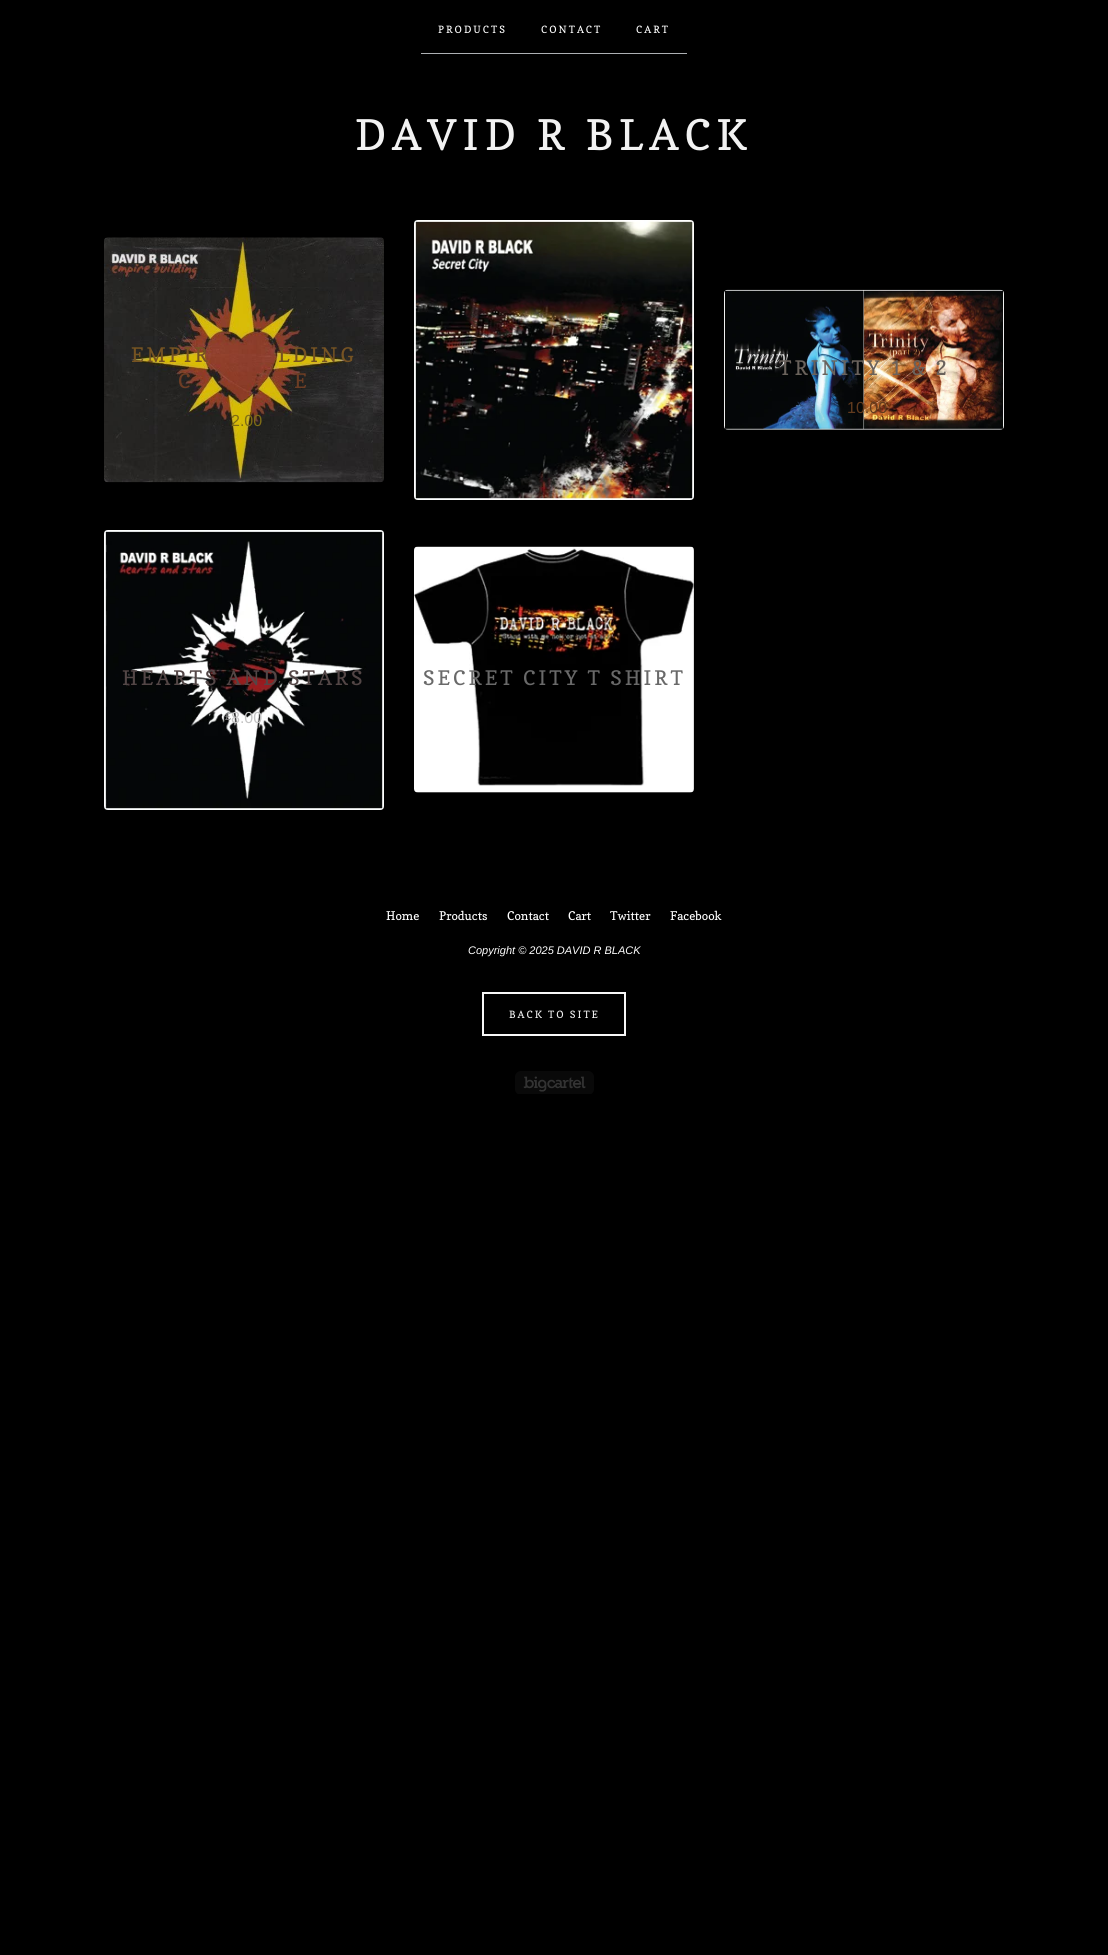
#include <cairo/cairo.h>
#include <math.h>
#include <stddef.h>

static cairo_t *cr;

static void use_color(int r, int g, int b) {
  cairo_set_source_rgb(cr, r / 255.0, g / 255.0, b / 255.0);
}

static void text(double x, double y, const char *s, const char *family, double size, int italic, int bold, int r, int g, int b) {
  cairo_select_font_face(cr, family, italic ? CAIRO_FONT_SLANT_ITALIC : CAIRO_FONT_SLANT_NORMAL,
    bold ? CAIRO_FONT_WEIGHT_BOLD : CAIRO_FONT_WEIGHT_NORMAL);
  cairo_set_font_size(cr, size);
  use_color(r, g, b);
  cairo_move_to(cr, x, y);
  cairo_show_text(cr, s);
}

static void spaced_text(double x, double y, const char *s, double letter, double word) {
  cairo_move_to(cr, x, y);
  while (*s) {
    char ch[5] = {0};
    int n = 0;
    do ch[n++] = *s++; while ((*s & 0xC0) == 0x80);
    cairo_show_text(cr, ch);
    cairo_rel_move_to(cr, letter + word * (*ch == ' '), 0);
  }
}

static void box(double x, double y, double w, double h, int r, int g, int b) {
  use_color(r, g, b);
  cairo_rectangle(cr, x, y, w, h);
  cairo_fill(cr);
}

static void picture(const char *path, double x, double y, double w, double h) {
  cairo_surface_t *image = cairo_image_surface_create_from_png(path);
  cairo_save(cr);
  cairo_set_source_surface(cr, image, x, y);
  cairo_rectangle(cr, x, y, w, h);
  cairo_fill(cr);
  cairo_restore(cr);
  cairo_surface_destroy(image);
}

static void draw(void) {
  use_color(0, 0, 0);
  cairo_paint(cr);
  box(421, 53, 266, 1, 173, 176, 179);
  picture("img_01.png", 104, 237, 280, 246);
  picture("img_02.png", 414, 220, 280, 280);
  picture("img_03.png", 724, 289, 280, 141);
  picture("img_04.png", 104, 530, 280, 280);
  picture("img_05.png", 414, 546, 280, 247);
  cairo_rectangle(cr, 483, 993, 142, 42);
  use_color(247, 247, 247);
  cairo_stroke(cr);
  picture("img_06.png", 515, 1071, 79, 23);
  cairo_select_font_face(cr, "Copse", CAIRO_FONT_SLANT_NORMAL, CAIRO_FONT_WEIGHT_NORMAL);
  cairo_set_font_size(cr, 10);
  use_color(255, 255, 255);
  spaced_text(438, 33, "PRODUCTS", 2, 0);
  spaced_text(541, 33, "CONTACT", 2, 0);
  spaced_text(636, 33, "CART", 2, 0);
  cairo_set_font_size(cr, 42);
  use_color(242, 242, 242);
  spaced_text(355, 150, "DAVID R BLACK", 6, 0);
  cairo_set_font_size(cr, 20);
  use_color(118, 83, 34);
  spaced_text(131, 362, "EMPIR", 3, 0);
  spaced_text(278, 362, "LDING", 3, 0);
  use_color(109, 61, 36);
  spaced_text(178, 388, "C", 3, 0);
  spaced_text(294, 388, "E", 3, 0);
  text(231, 426, "2.00", "Liberation Sans", 16, 0, 0, 126, 108, 21);
  cairo_select_font_face(cr, "Copse", CAIRO_FONT_SLANT_NORMAL, CAIRO_FONT_WEIGHT_NORMAL);
  cairo_set_font_size(cr, 20);
  use_color(106, 98, 92);
  spaced_text(779, 375, "TRINITY 1 & 2", 3, 0);
  text(847, 413, "10.00", "Liberation Sans", 16, 0, 0, 98, 59, 30);
  cairo_select_font_face(cr, "Copse", CAIRO_FONT_SLANT_NORMAL, CAIRO_FONT_WEIGHT_NORMAL);
  cairo_set_font_size(cr, 20);
  use_color(83, 70, 70);
  spaced_text(122, 685, "HEARTS AND STARS", 3, 0);
  text(225, 720, "£", "Liberation Sans", 11, 0, 0, 130, 131, 131);
  text(231, 723, "8.00", "Liberation Sans", 16, 0, 0, 197, 197, 197);
  cairo_select_font_face(cr, "Copse", CAIRO_FONT_SLANT_NORMAL, CAIRO_FONT_WEIGHT_NORMAL);
  cairo_set_font_size(cr, 20);
  use_color(105, 105, 105);
  spaced_text(423, 685, "SECRET CITY T SHIRT", 3, 0);
  text(386, 920, "Home", "Copse", 12, 0, 0, 255, 255, 255);
  text(439, 920, "Products", "Copse", 12, 0, 0, 255, 255, 255);
  text(507, 920, "Contact", "Copse", 12, 0, 0, 255, 255, 255);
  text(568, 920, "Cart", "Copse", 12, 0, 0, 255, 255, 255);
  text(610, 920, "Twitter", "Copse", 12, 0, 0, 255, 255, 255);
  text(670, 920, "Facebook", "Copse", 12, 0, 0, 255, 255, 255);
  text(468, 954, "Copyright © 2025 DAVID R BLACK", "Liberation Sans", 11, 1, 0, 255, 255, 255);
  cairo_select_font_face(cr, "Copse", CAIRO_FONT_SLANT_NORMAL, CAIRO_FONT_WEIGHT_NORMAL);
  cairo_set_font_size(cr, 10);
  use_color(242, 242, 242);
  spaced_text(509, 1018, "BACK TO SITE", 2, 0);
}

int main(void) {
  cairo_surface_t *surface = cairo_image_surface_create(CAIRO_FORMAT_RGB24, 1108, 1955);
  cr = cairo_create(surface);
  cairo_font_options_t *options = cairo_font_options_create();
  cairo_font_options_set_hint_metrics(options, CAIRO_HINT_METRICS_OFF);
  cairo_font_options_set_hint_style(options, CAIRO_HINT_STYLE_NONE);
  cairo_set_font_options(cr, options);
  cairo_set_miter_limit(cr, 4);
  draw();
  cairo_surface_write_to_png(surface, "out.png");
  cairo_font_options_destroy(options);
  cairo_destroy(cr);
  cairo_surface_destroy(surface);
  return 0;
}
